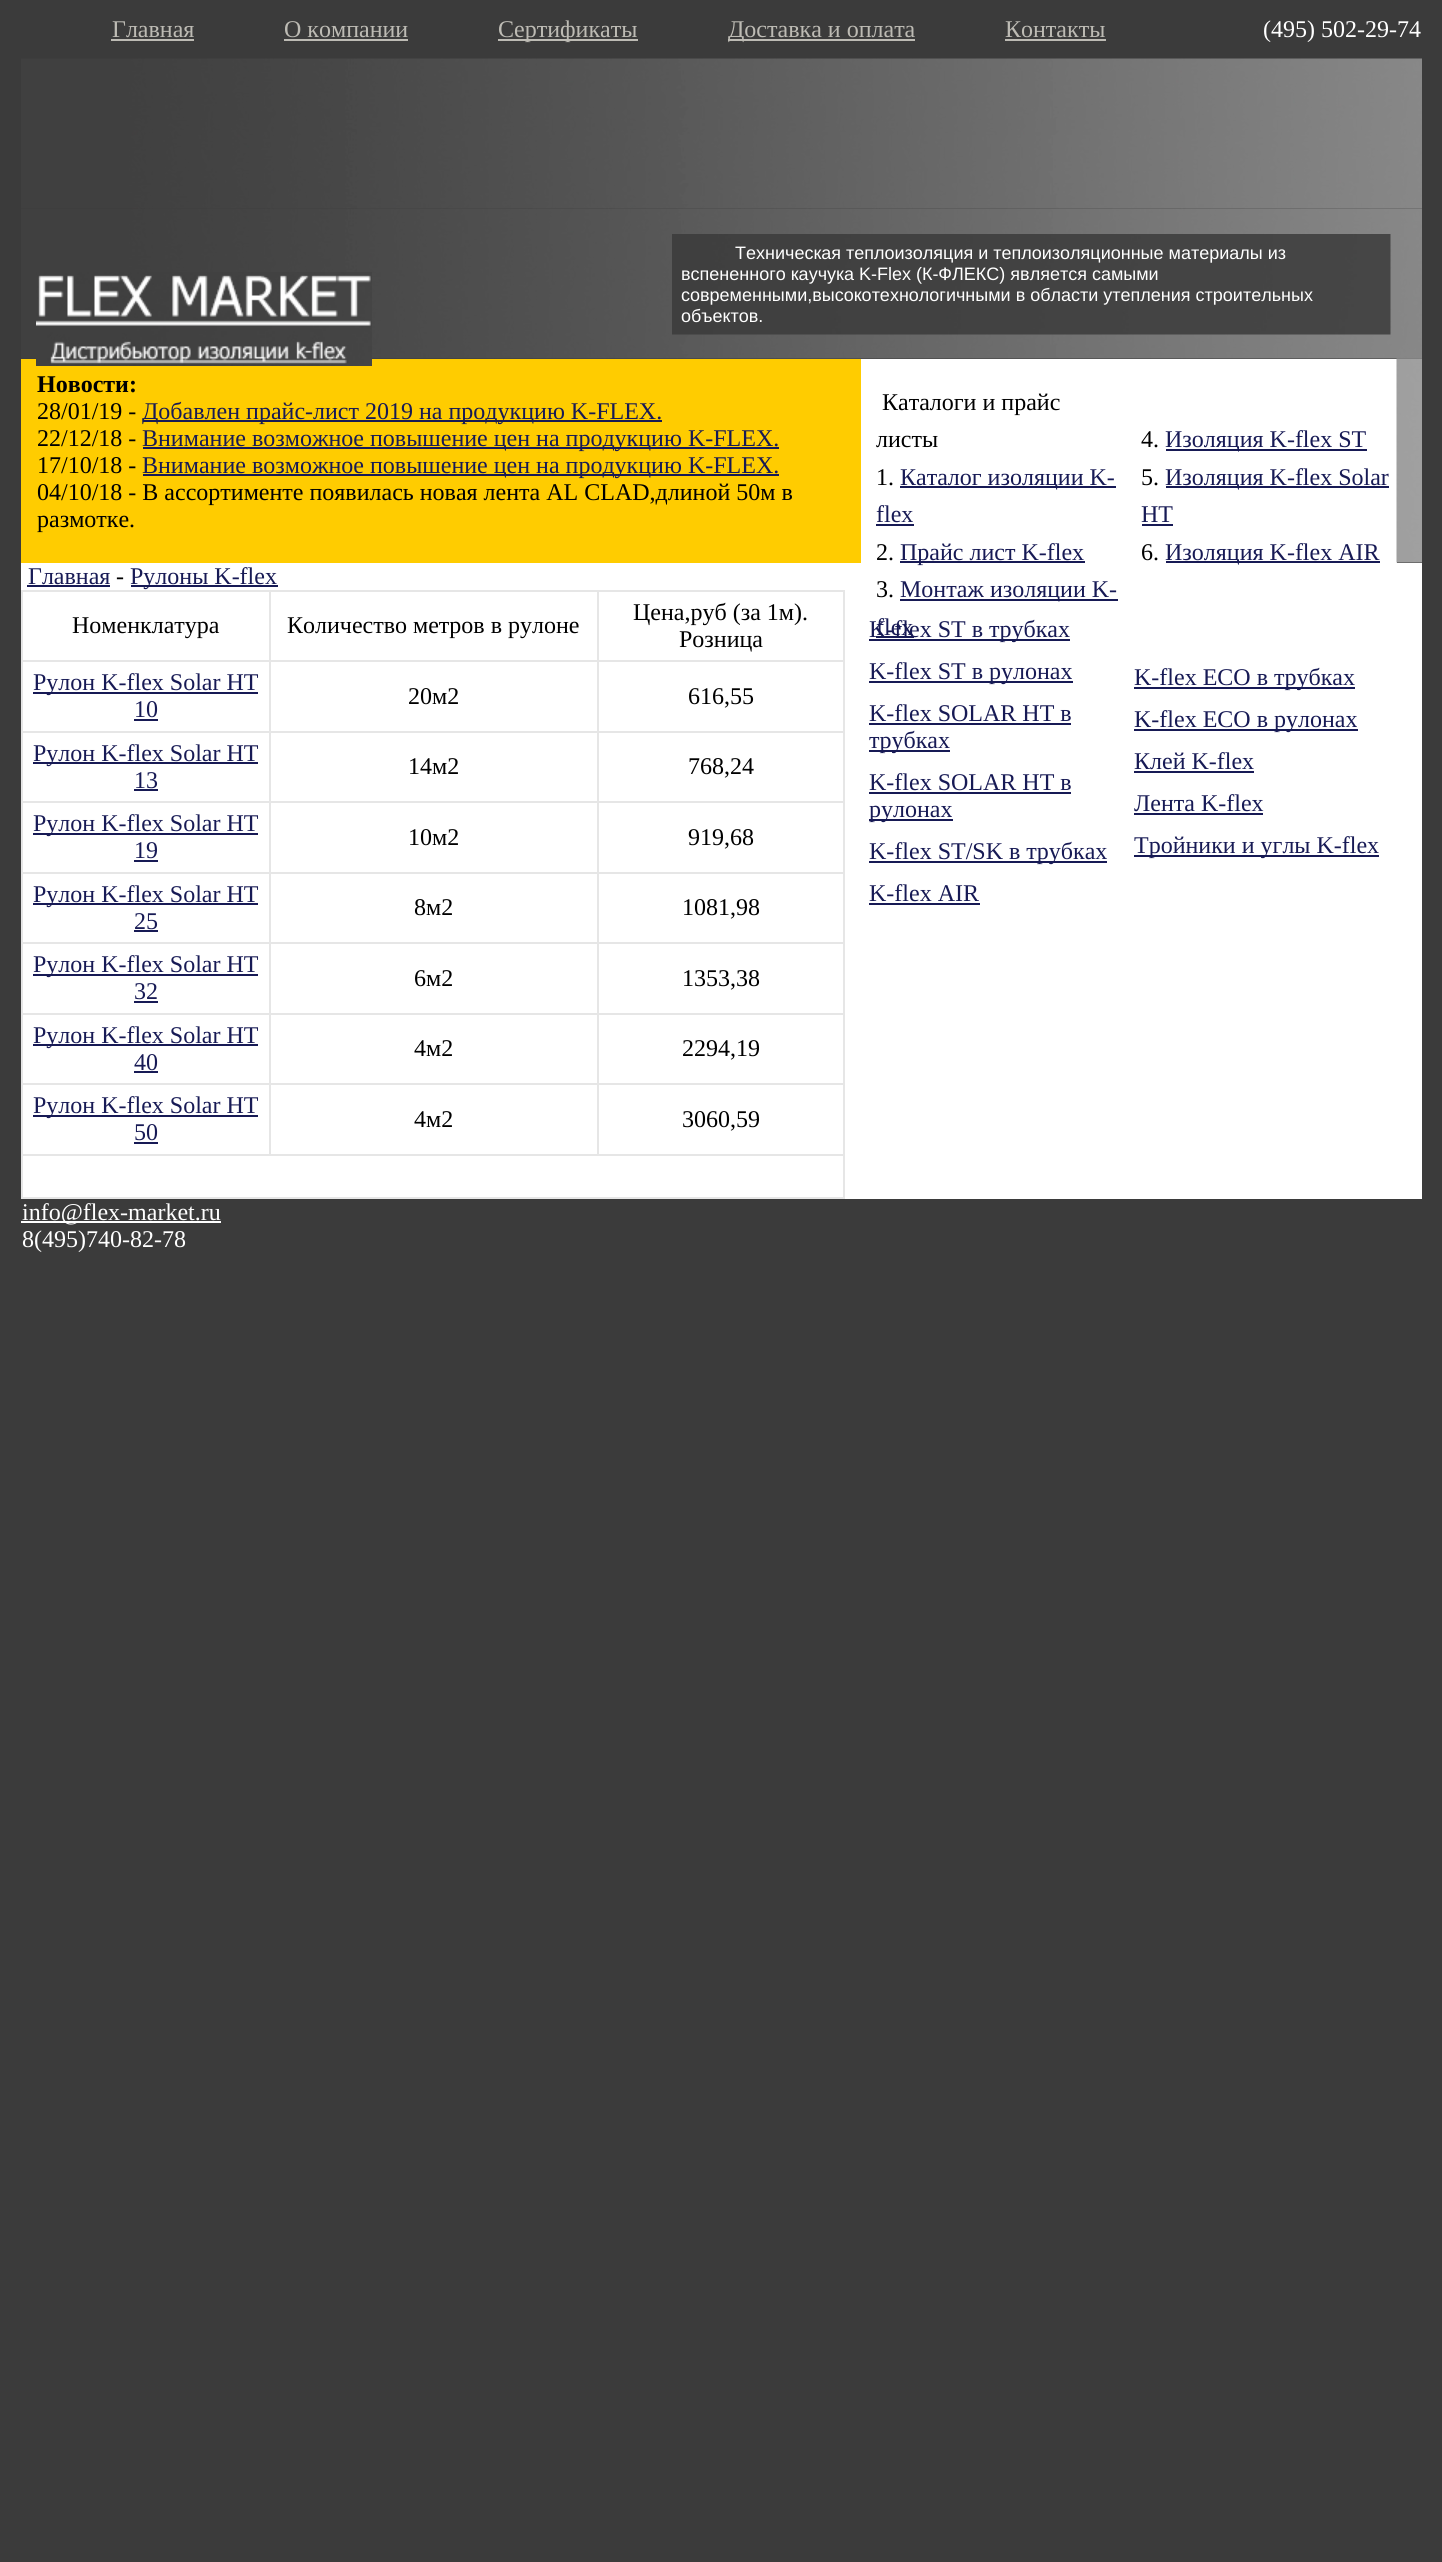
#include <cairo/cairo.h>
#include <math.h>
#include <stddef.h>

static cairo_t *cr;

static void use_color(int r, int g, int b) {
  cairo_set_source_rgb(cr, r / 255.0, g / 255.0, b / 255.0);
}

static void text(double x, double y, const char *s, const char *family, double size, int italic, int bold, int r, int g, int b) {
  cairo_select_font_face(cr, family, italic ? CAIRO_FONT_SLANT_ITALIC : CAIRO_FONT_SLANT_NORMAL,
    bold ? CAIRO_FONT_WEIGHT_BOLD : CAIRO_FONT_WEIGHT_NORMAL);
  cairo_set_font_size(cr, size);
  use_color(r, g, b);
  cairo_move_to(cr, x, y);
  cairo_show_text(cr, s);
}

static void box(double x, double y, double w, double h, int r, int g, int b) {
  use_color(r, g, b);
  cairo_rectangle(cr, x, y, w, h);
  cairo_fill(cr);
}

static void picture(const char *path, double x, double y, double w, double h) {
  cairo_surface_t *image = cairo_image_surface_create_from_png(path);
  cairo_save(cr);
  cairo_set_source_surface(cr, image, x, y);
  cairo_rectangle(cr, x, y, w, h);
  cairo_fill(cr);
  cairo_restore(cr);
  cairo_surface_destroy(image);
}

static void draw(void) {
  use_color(59, 59, 59);
  cairo_paint(cr);
  box(111, 39, 83, 2, 189, 187, 180);
  box(284, 39, 124, 2, 189, 187, 180);
  box(498, 39, 140, 2, 189, 187, 180);
  box(728, 39, 187, 2, 189, 187, 180);
  box(1005, 39, 101, 2, 189, 187, 180);
  picture("img_01.png", 21, 58, 1401, 151);
  picture("img_03.png", 21, 208, 1401, 151);
  box(21, 359, 840, 204, 255, 204, 0);
  picture("img_02.png", 36, 272, 336, 94);
  picture("img_04.png", 672, 234, 719, 101);
  box(143, 420, 519, 2, 23, 26, 85);
  box(143, 447, 636, 2, 23, 26, 85);
  box(143, 474, 636, 2, 23, 26, 85);
  box(861, 359, 536, 204, 255, 255, 255);
  box(900, 486, 216, 2, 23, 26, 85);
  box(876, 524, 38, 2, 23, 26, 85);
  box(900, 561, 185, 2, 23, 26, 85);
  box(861, 590, 561, 328, 255, 255, 255);
  box(900, 599, 218, 2, 23, 26, 85);
  box(876, 636, 38, 2, 23, 26, 85);
  box(1166, 449, 201, 2, 23, 26, 85);
  box(1166, 486, 223, 2, 23, 26, 85);
  box(1142, 524, 31, 2, 23, 26, 85);
  box(1166, 561, 214, 2, 23, 26, 85);
  picture("img_05.png", 1396, 358, 26, 205);
  box(21, 563, 1401, 27, 255, 255, 255);
  box(27, 585, 83, 2, 23, 26, 85);
  box(131, 585, 147, 2, 23, 26, 85);
  box(23, 590, 838, 609, 255, 255, 255);
  box(21, 590, 824, 2, 230, 230, 230);
  box(843, 590, 2, 609, 230, 230, 230);
  box(21, 1197, 824, 2, 230, 230, 230);
  box(21, 590, 2, 609, 230, 230, 230);
  box(597, 660, 248, 2, 230, 230, 230);
  box(597, 731, 248, 2, 230, 230, 230);
  box(597, 801, 248, 2, 230, 230, 230);
  box(597, 872, 248, 2, 230, 230, 230);
  box(597, 942, 248, 2, 230, 230, 230);
  box(597, 1013, 248, 2, 230, 230, 230);
  box(597, 1083, 248, 2, 230, 230, 230);
  box(21, 1154, 824, 2, 230, 230, 230);
  box(597, 1083, 2, 72, 230, 230, 230);
  box(269, 1083, 330, 2, 230, 230, 230);
  box(597, 1013, 2, 72, 230, 230, 230);
  box(269, 1013, 330, 2, 230, 230, 230);
  box(597, 942, 2, 72, 230, 230, 230);
  box(269, 942, 330, 2, 230, 230, 230);
  box(597, 872, 2, 72, 230, 230, 230);
  box(269, 872, 330, 2, 230, 230, 230);
  box(597, 801, 2, 72, 230, 230, 230);
  box(269, 801, 330, 2, 230, 230, 230);
  box(597, 731, 2, 72, 230, 230, 230);
  box(269, 731, 330, 2, 230, 230, 230);
  box(597, 660, 2, 72, 230, 230, 230);
  box(269, 660, 330, 2, 230, 230, 230);
  box(269, 1083, 2, 72, 230, 230, 230);
  box(21, 1083, 249, 2, 230, 230, 230);
  box(269, 1013, 2, 72, 230, 230, 230);
  box(21, 1013, 249, 2, 230, 230, 230);
  box(269, 942, 2, 72, 230, 230, 230);
  box(21, 942, 249, 2, 230, 230, 230);
  box(269, 872, 2, 72, 230, 230, 230);
  box(21, 872, 249, 2, 230, 230, 230);
  box(269, 801, 2, 72, 230, 230, 230);
  box(21, 801, 249, 2, 230, 230, 230);
  box(269, 731, 2, 72, 230, 230, 230);
  box(21, 731, 249, 2, 230, 230, 230);
  box(269, 660, 2, 72, 230, 230, 230);
  box(21, 660, 249, 2, 230, 230, 230);
  box(269, 590, 2, 72, 230, 230, 230);
  box(597, 590, 2, 72, 230, 230, 230);
  box(33, 692, 225, 2, 23, 26, 85);
  box(134, 719, 24, 2, 23, 26, 85);
  box(33, 762, 225, 2, 23, 26, 85);
  box(134, 789, 24, 2, 23, 26, 85);
  box(33, 833, 225, 2, 23, 26, 85);
  box(134, 860, 24, 2, 23, 26, 85);
  box(33, 903, 225, 2, 23, 26, 85);
  box(134, 930, 24, 2, 23, 26, 85);
  box(33, 974, 225, 2, 23, 26, 85);
  box(134, 1001, 24, 2, 23, 26, 85);
  box(33, 1044, 225, 2, 23, 26, 85);
  box(134, 1071, 24, 2, 23, 26, 85);
  box(33, 1115, 225, 2, 23, 26, 85);
  box(134, 1142, 24, 2, 23, 26, 85);
  box(869, 639, 201, 2, 23, 26, 85);
  box(869, 681, 204, 2, 23, 26, 85);
  box(869, 723, 202, 2, 23, 26, 85);
  box(869, 750, 81, 2, 23, 26, 85);
  box(869, 792, 202, 2, 23, 26, 85);
  box(869, 819, 84, 2, 23, 26, 85);
  box(869, 861, 238, 2, 23, 26, 85);
  box(869, 903, 111, 2, 23, 26, 85);
  box(1134, 687, 221, 2, 23, 26, 85);
  box(1134, 729, 224, 2, 23, 26, 85);
  box(1134, 771, 120, 2, 23, 26, 85);
  box(1134, 813, 129, 2, 23, 26, 85);
  box(1134, 855, 245, 2, 23, 26, 85);
  box(861, 918, 561, 281, 255, 255, 255);
  box(21, 1221, 200, 2, 255, 255, 255);
  text(112, 37, "Главная", "Liberation Serif", 24, 0, 0, 189, 187, 180);
  text(284, 37, "О компании", "Liberation Serif", 24, 0, 0, 189, 187, 180);
  text(498, 37, "Сертификаты", "Liberation Serif", 24, 0, 0, 189, 187, 180);
  text(728, 37, "Доставка и оплата", "Liberation Serif", 24, 0, 0, 189, 187, 180);
  text(1005, 37, "Контакты", "Liberation Serif", 24, 0, 0, 189, 187, 180);
  text(1263, 37, "(495) 502-29-74", "Liberation Serif", 24, 0, 0, 255, 255, 255);
  text(735, 259, "Техническая теплоизоляция и теплоизоляционные материалы из", "Liberation Sans", 18, 0, 0, 255, 255, 255);
  text(681, 280, "вспененного каучука K-Flex (К-ФЛЕКС) является самыми", "Liberation Sans", 18, 0, 0, 255, 255, 255);
  text(681, 301, "современными,высокотехнологичными в области утепления строительных", "Liberation Sans", 18, 0, 0, 255, 255, 255);
  text(681, 322, "объектов.", "Liberation Sans", 18, 0, 0, 255, 255, 255);
  text(37, 392, "Новости:", "Liberation Serif", 24, 0, 1, 0, 0, 0);
  text(37, 419, "28/01/19 -", "Liberation Serif", 24, 0, 0, 0, 0, 0);
  text(142, 419, "Добавлен прайс-лист 2019 на продукцию K-FLEX.", "Liberation Serif", 24, 0, 0, 23, 26, 85);
  text(37, 446, "22/12/18 -", "Liberation Serif", 24, 0, 0, 0, 0, 0);
  text(142, 446, "Внимание возможное повышение цен на продукцию K-FLEX.", "Liberation Serif", 24, 0, 0, 23, 26, 85);
  text(37, 473, "17/10/18 -", "Liberation Serif", 24, 0, 0, 0, 0, 0);
  text(142, 473, "Внимание возможное повышение цен на продукцию K-FLEX.", "Liberation Serif", 24, 0, 0, 23, 26, 85);
  text(37, 500, "04/10/18 - В ассортименте появилась новая лента AL CLAD,длиной 50м в", "Liberation Serif", 24, 0, 0, 0, 0, 0);
  text(37, 527, "размотке.", "Liberation Serif", 24, 0, 0, 0, 0, 0);
  text(882, 410, "Каталоги и прайс", "Liberation Serif", 24, 0, 0, 0, 0, 0);
  text(876, 447, "листы", "Liberation Serif", 24, 0, 0, 0, 0, 0);
  text(876, 485, "1.", "Liberation Serif", 24, 0, 0, 0, 0, 0);
  text(900, 485, "Каталог изоляции K-", "Liberation Serif", 24, 0, 0, 23, 26, 85);
  text(876, 522, "flex", "Liberation Serif", 24, 0, 0, 23, 26, 85);
  text(876, 560, "2.", "Liberation Serif", 24, 0, 0, 0, 0, 0);
  text(900, 560, "Прайс лист K-flex", "Liberation Serif", 24, 0, 0, 23, 26, 85);
  text(876, 597, "3.", "Liberation Serif", 24, 0, 0, 0, 0, 0);
  text(900, 597, "Монтаж изоляции K-", "Liberation Serif", 24, 0, 0, 23, 26, 85);
  text(876, 635, "flex", "Liberation Serif", 24, 0, 0, 23, 26, 85);
  text(1141, 447, "4.", "Liberation Serif", 24, 0, 0, 0, 0, 0);
  text(1165, 447, "Изоляция K-flex ST", "Liberation Serif", 24, 0, 0, 23, 26, 85);
  text(1141, 485, "5.", "Liberation Serif", 24, 0, 0, 0, 0, 0);
  text(1165, 485, "Изоляция K-flex Solar", "Liberation Serif", 24, 0, 0, 23, 26, 85);
  text(1141, 522, "HT", "Liberation Serif", 24, 0, 0, 23, 26, 85);
  text(1141, 560, "6.", "Liberation Serif", 24, 0, 0, 0, 0, 0);
  text(1165, 560, "Изоляция K-flex AIR", "Liberation Serif", 24, 0, 0, 23, 26, 85);
  text(28, 584, "Главная", "Liberation Serif", 24, 0, 0, 23, 26, 85);
  text(116, 584, "-", "Liberation Serif", 24, 0, 0, 0, 0, 0);
  text(130, 584, "Рулоны K-flex", "Liberation Serif", 24, 0, 0, 23, 26, 85);
  text(72, 633, "Номенклатура", "Liberation Serif", 24, 0, 0, 0, 0, 0);
  text(287, 633, "Количество метров в рулоне", "Liberation Serif", 24, 0, 0, 0, 0, 0);
  text(633, 620, "Цена,руб (за 1м).", "Liberation Serif", 24, 0, 0, 0, 0, 0);
  text(679, 647, "Розница", "Liberation Serif", 24, 0, 0, 0, 0, 0);
  text(33, 690, "Рулон K-flex Solar HT", "Liberation Serif", 24, 0, 0, 23, 26, 85);
  text(134, 717, "10", "Liberation Serif", 24, 0, 0, 23, 26, 85);
  text(408, 704, "20м2", "Liberation Serif", 24, 0, 0, 0, 0, 0);
  text(688, 704, "616,55", "Liberation Serif", 24, 0, 0, 0, 0, 0);
  text(33, 761, "Рулон K-flex Solar HT", "Liberation Serif", 24, 0, 0, 23, 26, 85);
  text(134, 788, "13", "Liberation Serif", 24, 0, 0, 23, 26, 85);
  text(408, 774, "14м2", "Liberation Serif", 24, 0, 0, 0, 0, 0);
  text(688, 774, "768,24", "Liberation Serif", 24, 0, 0, 0, 0, 0);
  text(33, 831, "Рулон K-flex Solar HT", "Liberation Serif", 24, 0, 0, 23, 26, 85);
  text(134, 858, "19", "Liberation Serif", 24, 0, 0, 23, 26, 85);
  text(408, 845, "10м2", "Liberation Serif", 24, 0, 0, 0, 0, 0);
  text(688, 845, "919,68", "Liberation Serif", 24, 0, 0, 0, 0, 0);
  text(33, 902, "Рулон K-flex Solar HT", "Liberation Serif", 24, 0, 0, 23, 26, 85);
  text(134, 929, "25", "Liberation Serif", 24, 0, 0, 23, 26, 85);
  text(414, 915, "8м2", "Liberation Serif", 24, 0, 0, 0, 0, 0);
  text(682, 915, "1081,98", "Liberation Serif", 24, 0, 0, 0, 0, 0);
  text(33, 972, "Рулон K-flex Solar HT", "Liberation Serif", 24, 0, 0, 23, 26, 85);
  text(134, 999, "32", "Liberation Serif", 24, 0, 0, 23, 26, 85);
  text(414, 986, "6м2", "Liberation Serif", 24, 0, 0, 0, 0, 0);
  text(682, 986, "1353,38", "Liberation Serif", 24, 0, 0, 0, 0, 0);
  text(33, 1043, "Рулон K-flex Solar HT", "Liberation Serif", 24, 0, 0, 23, 26, 85);
  text(134, 1070, "40", "Liberation Serif", 24, 0, 0, 23, 26, 85);
  text(414, 1056, "4м2", "Liberation Serif", 24, 0, 0, 0, 0, 0);
  text(682, 1056, "2294,19", "Liberation Serif", 24, 0, 0, 0, 0, 0);
  text(33, 1113, "Рулон K-flex Solar HT", "Liberation Serif", 24, 0, 0, 23, 26, 85);
  text(134, 1140, "50", "Liberation Serif", 24, 0, 0, 23, 26, 85);
  text(414, 1127, "4м2", "Liberation Serif", 24, 0, 0, 0, 0, 0);
  text(682, 1127, "3060,59", "Liberation Serif", 24, 0, 0, 0, 0, 0);
  text(869, 637, "K-flex ST в трубках", "Liberation Serif", 24, 0, 0, 23, 26, 85);
  text(869, 679, "K-flex ST в рулонах", "Liberation Serif", 24, 0, 0, 23, 26, 85);
  text(869, 721, "K-flex SOLAR HT в", "Liberation Serif", 24, 0, 0, 23, 26, 85);
  text(869, 748, "трубках", "Liberation Serif", 24, 0, 0, 23, 26, 85);
  text(869, 790, "K-flex SOLAR HT в", "Liberation Serif", 24, 0, 0, 23, 26, 85);
  text(869, 817, "рулонах", "Liberation Serif", 24, 0, 0, 23, 26, 85);
  text(869, 859, "K-flex ST/SK в трубках", "Liberation Serif", 24, 0, 0, 23, 26, 85);
  text(869, 901, "K-flex AIR", "Liberation Serif", 24, 0, 0, 23, 26, 85);
  text(1134, 685, "K-flex ECO в трубках", "Liberation Serif", 24, 0, 0, 23, 26, 85);
  text(1134, 727, "K-flex ECO в рулонах", "Liberation Serif", 24, 0, 0, 23, 26, 85);
  text(1134, 769, "Клей K-flex", "Liberation Serif", 24, 0, 0, 23, 26, 85);
  text(1134, 811, "Лента K-flex", "Liberation Serif", 24, 0, 0, 23, 26, 85);
  text(1134, 853, "Тройники и углы K-flex", "Liberation Serif", 24, 0, 0, 23, 26, 85);
  text(22, 1220, "info@flex-market.ru", "Liberation Serif", 24, 0, 0, 255, 255, 255);
  text(22, 1247, "8(495)740-82-78", "Liberation Serif", 24, 0, 0, 255, 255, 255);
}

int main(void) {
  cairo_surface_t *surface = cairo_image_surface_create(CAIRO_FORMAT_RGB24, 1442, 2562);
  cr = cairo_create(surface);
  cairo_font_options_t *options = cairo_font_options_create();
  cairo_font_options_set_hint_metrics(options, CAIRO_HINT_METRICS_OFF);
  cairo_font_options_set_hint_style(options, CAIRO_HINT_STYLE_NONE);
  cairo_set_font_options(cr, options);
  cairo_set_miter_limit(cr, 4);
  draw();
  cairo_surface_write_to_png(surface, "out.png");
  cairo_font_options_destroy(options);
  cairo_destroy(cr);
  cairo_surface_destroy(surface);
  return 0;
}
